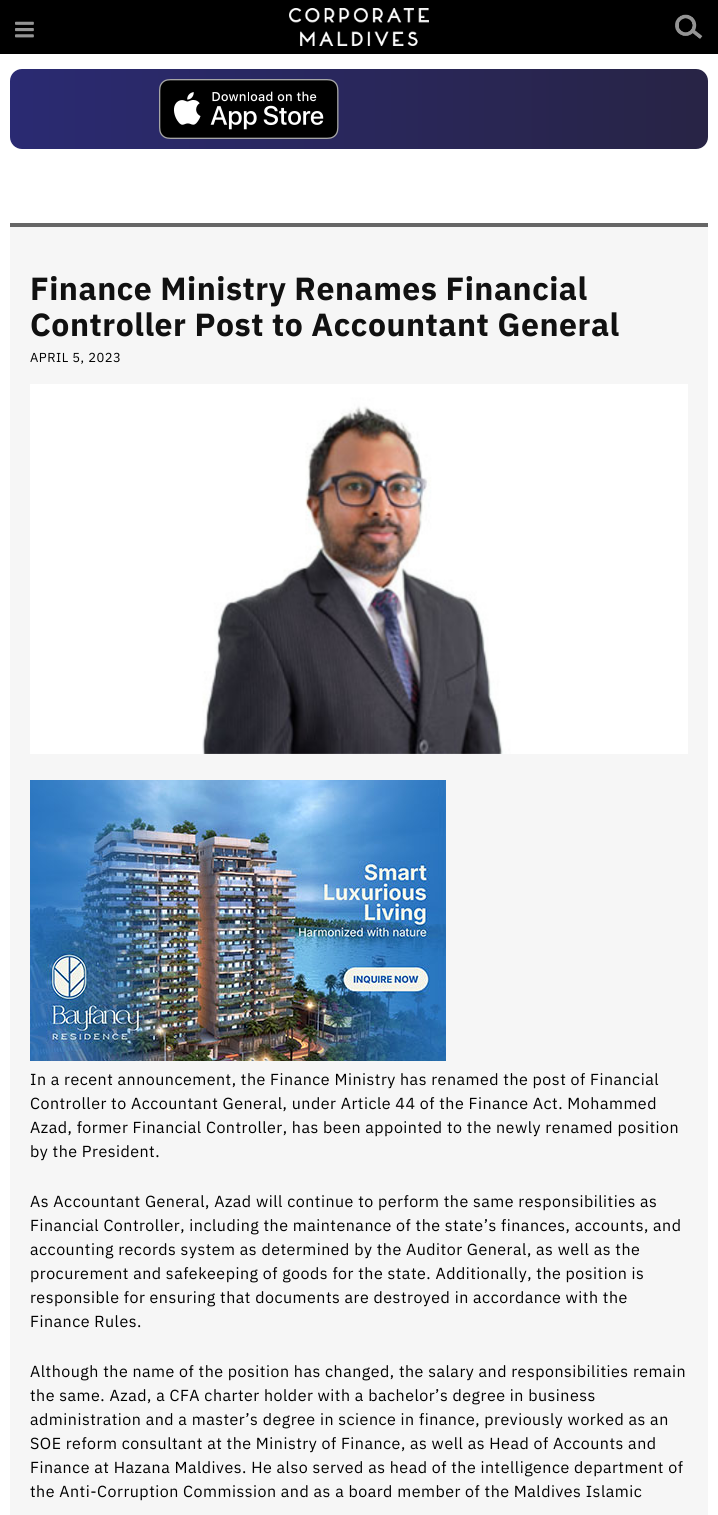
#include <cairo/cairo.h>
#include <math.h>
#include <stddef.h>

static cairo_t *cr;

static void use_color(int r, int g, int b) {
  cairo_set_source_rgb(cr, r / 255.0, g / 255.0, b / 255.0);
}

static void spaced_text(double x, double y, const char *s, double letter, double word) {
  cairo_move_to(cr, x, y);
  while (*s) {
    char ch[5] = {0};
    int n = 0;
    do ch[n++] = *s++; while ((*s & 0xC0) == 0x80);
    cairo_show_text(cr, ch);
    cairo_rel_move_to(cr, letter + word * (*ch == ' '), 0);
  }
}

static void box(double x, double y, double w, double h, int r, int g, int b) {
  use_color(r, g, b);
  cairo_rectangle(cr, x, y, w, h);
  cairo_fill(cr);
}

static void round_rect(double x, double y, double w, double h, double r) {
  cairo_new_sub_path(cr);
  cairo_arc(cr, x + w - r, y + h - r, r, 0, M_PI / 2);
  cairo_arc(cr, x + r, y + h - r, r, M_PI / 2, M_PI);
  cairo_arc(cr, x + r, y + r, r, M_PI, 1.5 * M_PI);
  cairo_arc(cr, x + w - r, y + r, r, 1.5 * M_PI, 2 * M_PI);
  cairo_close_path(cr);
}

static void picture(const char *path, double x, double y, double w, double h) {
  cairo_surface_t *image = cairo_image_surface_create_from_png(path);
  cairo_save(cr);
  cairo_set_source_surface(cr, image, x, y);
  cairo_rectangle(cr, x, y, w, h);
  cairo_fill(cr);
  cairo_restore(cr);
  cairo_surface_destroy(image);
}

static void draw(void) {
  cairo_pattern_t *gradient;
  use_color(255, 255, 255);
  cairo_paint(cr);
  box(0, 0, 718, 54, 0, 0, 0);
  picture("img_01.png", 15, 21, 19, 17);
  picture("img_02.png", 289, 8, 140, 38);
  picture("img_03.png", 675, 14, 28, 25);
  gradient = cairo_pattern_create_linear(10, 109, 708, 109);
  cairo_pattern_add_color_stop_rgba(gradient, 0, 0.165, 0.165, 0.447, 1);
  cairo_pattern_add_color_stop_rgba(gradient, 1, 0.157, 0.141, 0.271, 1);
  cairo_set_source(cr, gradient);
  cairo_pattern_destroy(gradient);
  round_rect(10, 69, 698, 80, 12);
  cairo_fill(cr);
  picture("img_04.png", 159, 79, 180, 60);
  box(10, 227, 698, 1288, 246, 246, 246);
  box(10, 223, 698, 4, 102, 102, 102);
  picture("img_05.png", 30, 384, 658, 370);
  picture("img_06.png", 30, 780, 416, 281);
  cairo_select_font_face(cr, "IBM Plex Sans", CAIRO_FONT_SLANT_NORMAL, CAIRO_FONT_WEIGHT_BOLD);
  cairo_set_font_size(cr, 32);
  use_color(17, 17, 17);
  spaced_text(30, 300, "Finance Ministry Renames Financial", 0.5, 0);
  spaced_text(30, 336, "Controller Post to Accountant General", 0.5, 0);
  cairo_select_font_face(cr, "IBM Plex Sans", CAIRO_FONT_SLANT_NORMAL, CAIRO_FONT_WEIGHT_NORMAL);
  cairo_set_font_size(cr, 13);
  use_color(0, 0, 0);
  spaced_text(30, 362, "APRIL 5, 2023", 0.5, 0);
  cairo_set_font_size(cr, 16);
  spaced_text(30, 1085, "In a recent announcement, the Finance Ministry has renamed the post of Financial", 0.5, 0);
  spaced_text(30, 1109, "Controller to Accountant General, under Article 44 of the Finance Act. Mohammed", 0.5, 0);
  spaced_text(30, 1133, "Azad, former Financial Controller, has been appointed to the newly renamed position", 0.5, 0);
  spaced_text(30, 1157, "by the President.", 0.5, 0);
  spaced_text(30, 1207, "As Accountant General, Azad will continue to perform the same responsibilities as", 0.5, 0);
  spaced_text(30, 1231, "Financial Controller, including the maintenance of the state’s finances, accounts, and", 0.5, 0);
  spaced_text(30, 1255, "accounting records system as determined by the Auditor General, as well as the", 0.5, 0);
  spaced_text(30, 1279, "procurement and safekeeping of goods for the state. Additionally, the position is", 0.5, 0);
  spaced_text(30, 1303, "responsible for ensuring that documents are destroyed in accordance with the", 0.5, 0);
  spaced_text(30, 1327, "Finance Rules.", 0.5, 0);
  spaced_text(30, 1377, "Although the name of the position has changed, the salary and responsibilities remain", 0.5, 0);
  spaced_text(30, 1401, "the same. Azad, a CFA charter holder with a bachelor’s degree in business", 0.5, 0);
  spaced_text(30, 1425, "administration and a master’s degree in science in finance, previously worked as an", 0.5, 0);
  spaced_text(30, 1449, "SOE reform consultant at the Ministry of Finance, as well as Head of Accounts and", 0.5, 0);
  spaced_text(30, 1473, "Finance at Hazana Maldives. He also served as head of the intelligence department of", 0.5, 0);
  spaced_text(30, 1497, "the Anti-Corruption Commission and as a board member of the Maldives Islamic", 0.5, 0);
}

int main(void) {
  cairo_surface_t *surface = cairo_image_surface_create(CAIRO_FORMAT_RGB24, 718, 1515);
  cr = cairo_create(surface);
  cairo_font_options_t *options = cairo_font_options_create();
  cairo_font_options_set_hint_metrics(options, CAIRO_HINT_METRICS_OFF);
  cairo_font_options_set_hint_style(options, CAIRO_HINT_STYLE_NONE);
  cairo_set_font_options(cr, options);
  cairo_set_miter_limit(cr, 4);
  draw();
  cairo_surface_write_to_png(surface, "out.png");
  cairo_font_options_destroy(options);
  cairo_destroy(cr);
  cairo_surface_destroy(surface);
  return 0;
}
